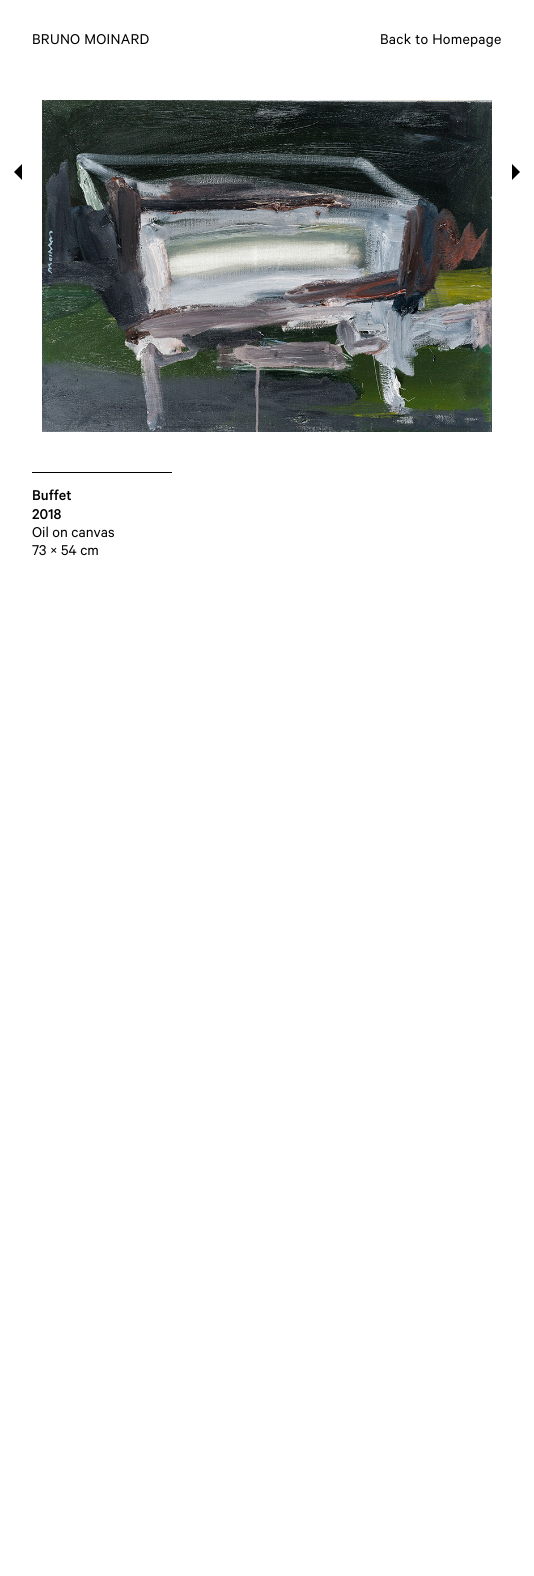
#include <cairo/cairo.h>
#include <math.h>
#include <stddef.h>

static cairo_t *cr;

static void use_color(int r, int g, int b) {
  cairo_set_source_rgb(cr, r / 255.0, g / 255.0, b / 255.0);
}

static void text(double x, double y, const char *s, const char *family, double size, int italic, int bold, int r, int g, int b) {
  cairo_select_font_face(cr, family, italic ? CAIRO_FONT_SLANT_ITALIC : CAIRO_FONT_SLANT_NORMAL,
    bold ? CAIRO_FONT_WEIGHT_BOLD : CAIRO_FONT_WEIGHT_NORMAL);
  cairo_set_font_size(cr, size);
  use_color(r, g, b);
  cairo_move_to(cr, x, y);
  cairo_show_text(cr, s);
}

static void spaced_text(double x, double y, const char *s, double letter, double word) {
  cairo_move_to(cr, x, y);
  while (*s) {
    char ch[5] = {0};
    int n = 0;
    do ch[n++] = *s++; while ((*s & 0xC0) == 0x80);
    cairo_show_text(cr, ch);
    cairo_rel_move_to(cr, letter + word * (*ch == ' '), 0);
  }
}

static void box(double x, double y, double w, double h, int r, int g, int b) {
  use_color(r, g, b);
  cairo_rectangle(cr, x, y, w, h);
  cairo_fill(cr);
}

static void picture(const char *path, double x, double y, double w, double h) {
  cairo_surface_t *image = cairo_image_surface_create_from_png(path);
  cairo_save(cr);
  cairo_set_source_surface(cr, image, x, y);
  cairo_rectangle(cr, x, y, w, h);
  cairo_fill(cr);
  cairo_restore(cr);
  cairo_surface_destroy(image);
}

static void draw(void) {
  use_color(255, 255, 255);
  cairo_paint(cr);
  picture("img_01.png", 42, 100, 450, 332);
  use_color(0, 0, 0);
  cairo_new_path(cr);
  cairo_move_to(cr, 22, 164);
  cairo_line_to(cr, 22, 180);
  cairo_line_to(cr, 14, 172);
  cairo_close_path(cr);
  cairo_fill(cr);
  cairo_new_path(cr);
  cairo_move_to(cr, 512, 180);
  cairo_line_to(cr, 512, 164);
  cairo_line_to(cr, 520, 172);
  cairo_close_path(cr);
  cairo_fill(cr);
  box(32, 472, 140, 1, 0, 0, 0);
  cairo_select_font_face(cr, "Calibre", CAIRO_FONT_SLANT_NORMAL, CAIRO_FONT_WEIGHT_NORMAL);
  cairo_set_font_size(cr, 16);
  spaced_text(32, 44, "BRUNO MOINARD", 0.25, 0);
  spaced_text(380, 44, "Back to Homepage", 0.25, 0);
  text(32, 500, "Buffet", "Calibre Medium", 16, 0, 0, 0, 0, 0);
  text(32, 519, "2018", "Calibre Medium", 16, 0, 0, 0, 0, 0);
  text(32, 537, "Oil on canvas", "Calibre", 16, 0, 0, 0, 0, 0);
  text(32, 555, "73 × 54 cm", "Calibre", 16, 0, 0, 0, 0, 0);
}

int main(void) {
  cairo_surface_t *surface = cairo_image_surface_create(CAIRO_FORMAT_RGB24, 534, 1576);
  cr = cairo_create(surface);
  cairo_font_options_t *options = cairo_font_options_create();
  cairo_font_options_set_hint_metrics(options, CAIRO_HINT_METRICS_OFF);
  cairo_font_options_set_hint_style(options, CAIRO_HINT_STYLE_NONE);
  cairo_set_font_options(cr, options);
  cairo_set_miter_limit(cr, 4);
  draw();
  cairo_surface_write_to_png(surface, "out.png");
  cairo_font_options_destroy(options);
  cairo_destroy(cr);
  cairo_surface_destroy(surface);
  return 0;
}
